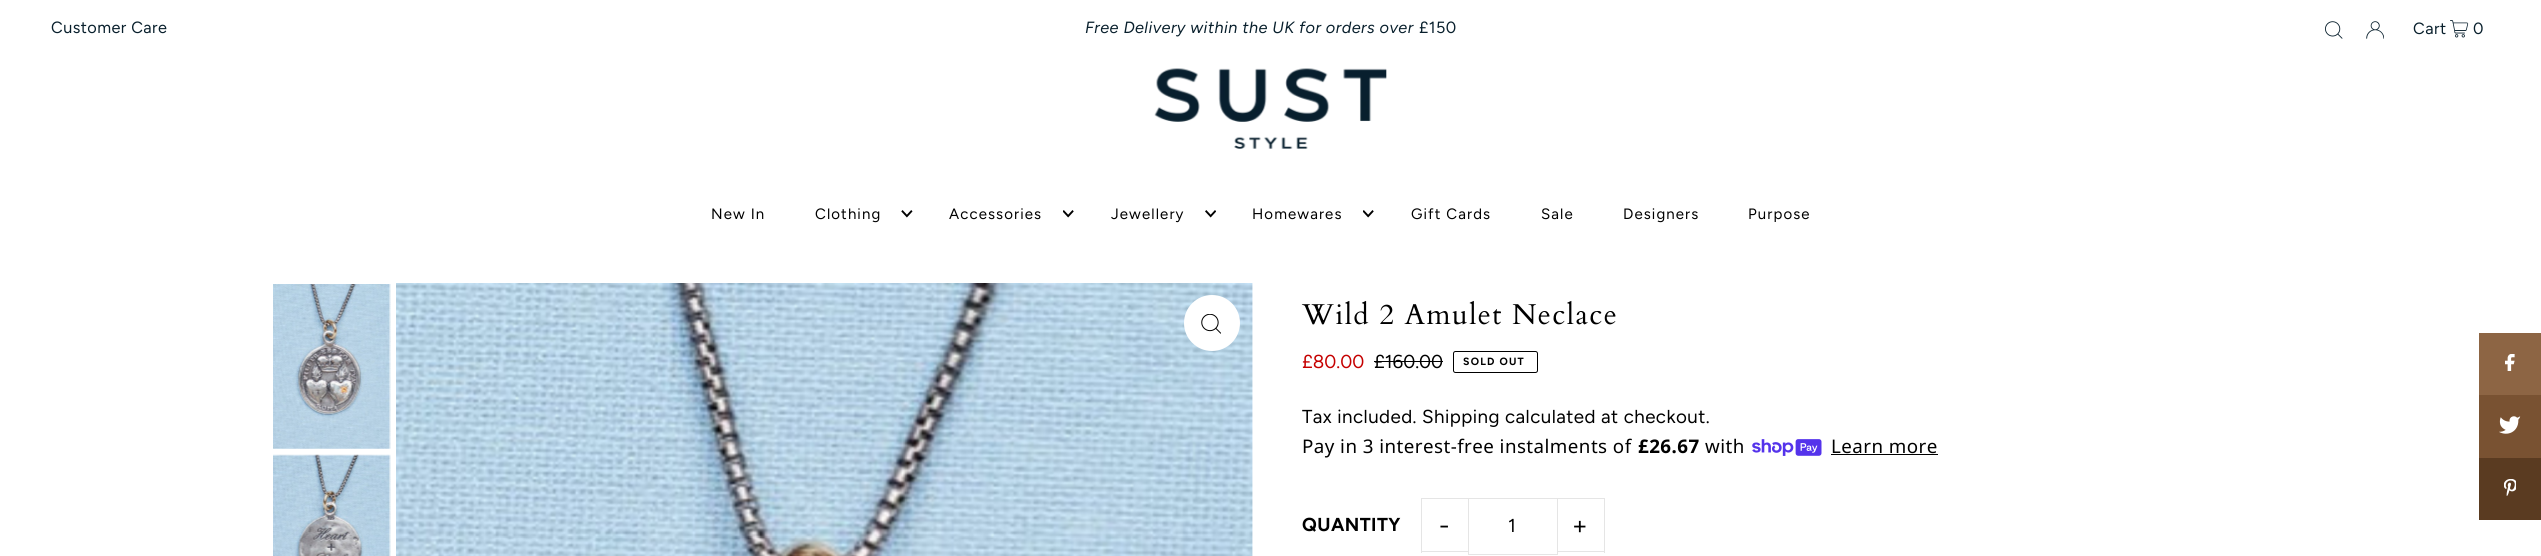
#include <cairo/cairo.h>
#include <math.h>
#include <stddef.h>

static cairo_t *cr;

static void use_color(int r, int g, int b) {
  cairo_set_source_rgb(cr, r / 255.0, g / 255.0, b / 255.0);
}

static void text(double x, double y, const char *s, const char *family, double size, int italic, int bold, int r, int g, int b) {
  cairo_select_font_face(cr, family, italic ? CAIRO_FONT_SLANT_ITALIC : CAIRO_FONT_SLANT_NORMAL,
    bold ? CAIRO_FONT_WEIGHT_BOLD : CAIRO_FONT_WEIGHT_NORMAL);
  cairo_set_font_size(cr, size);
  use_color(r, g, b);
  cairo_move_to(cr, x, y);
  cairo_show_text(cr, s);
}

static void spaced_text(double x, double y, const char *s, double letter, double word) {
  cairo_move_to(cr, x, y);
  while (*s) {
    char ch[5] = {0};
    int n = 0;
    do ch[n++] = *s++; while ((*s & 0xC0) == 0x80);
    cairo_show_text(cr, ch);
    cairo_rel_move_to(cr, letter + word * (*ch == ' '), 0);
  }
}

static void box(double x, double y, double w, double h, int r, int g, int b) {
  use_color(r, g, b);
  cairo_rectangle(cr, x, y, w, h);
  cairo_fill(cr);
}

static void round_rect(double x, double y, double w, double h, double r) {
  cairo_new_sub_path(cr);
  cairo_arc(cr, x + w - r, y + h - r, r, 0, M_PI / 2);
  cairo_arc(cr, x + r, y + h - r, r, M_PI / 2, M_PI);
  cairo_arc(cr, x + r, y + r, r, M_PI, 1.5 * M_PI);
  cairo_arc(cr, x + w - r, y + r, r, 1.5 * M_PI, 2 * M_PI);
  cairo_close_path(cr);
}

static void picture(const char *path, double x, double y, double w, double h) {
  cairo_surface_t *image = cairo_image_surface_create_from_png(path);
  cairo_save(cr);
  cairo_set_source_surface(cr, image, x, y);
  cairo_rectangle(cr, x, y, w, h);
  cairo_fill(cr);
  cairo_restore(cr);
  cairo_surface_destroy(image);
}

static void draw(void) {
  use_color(255, 255, 255);
  cairo_paint(cr);
  picture("img_01.png", 2325, 21, 18, 18);
  picture("img_02.png", 2366, 21, 18, 18);
  picture("img_03.png", 2450, 20, 19, 18);
  picture("img_04.png", 1154, 68, 233, 81);
  picture("img_05.png", 901, 210, 12, 8);
  picture("img_06.png", 1063, 210, 11, 8);
  picture("img_07.png", 1205, 210, 11, 8);
  picture("img_06.png", 1363, 210, 11, 8);
  picture("img_08.png", 273, 284, 118, 165);
  picture("img_09.png", 273, 454, 118, 102);
  picture("img_10.png", 396, 283, 857, 273);
  use_color(255, 255, 255);
  cairo_arc(cr, 1212, 323, 28, 0, 2 * M_PI);
  cairo_fill(cr);
  picture("img_11.png", 1201, 314, 20, 20);
  box(1374, 361, 69, 1, 0, 0, 0);
  round_rect(1453.5, 351.5, 84, 21, 2);
  cairo_set_line_width(cr, 1);
  cairo_stroke(cr);
  picture("img_12.png", 1752, 439, 70, 17);
  box(1831, 454, 107, 1, 0, 0, 0);
  box(1421, 498, 48, 1, 229, 229, 229);
  box(1421, 551, 48, 1, 229, 229, 229);
  box(1421, 498, 1, 55, 229, 229, 229);
  cairo_rectangle(cr, 1468.5, 498.5, 89, 56);
  cairo_stroke(cr);
  box(1558, 498, 47, 1, 229, 229, 229);
  box(1604, 498, 1, 55, 229, 229, 229);
  box(1558, 551, 47, 1, 229, 229, 229);
  box(2479, 333, 62, 62, 141, 101, 68);
  picture("img_13.png", 2505, 354, 10, 17);
  box(2479, 395, 62, 63, 121, 82, 50);
  picture("img_14.png", 2499, 416, 22, 18);
  box(2479, 458, 62, 62, 90, 59, 33);
  picture("img_15.png", 2504, 479, 12, 17);
  cairo_select_font_face(cr, "Figtree", CAIRO_FONT_SLANT_NORMAL, CAIRO_FONT_WEIGHT_NORMAL);
  cairo_set_font_size(cr, 16.25);
  use_color(8, 31, 44);
  spaced_text(51, 33, "Customer Care", 0.45, 0);
  cairo_select_font_face(cr, "Figtree", CAIRO_FONT_SLANT_ITALIC, CAIRO_FONT_WEIGHT_NORMAL);
  spaced_text(1085, 33, "Free Delivery within the UK for orders over", 0.45, 0);
  cairo_select_font_face(cr, "Figtree", CAIRO_FONT_SLANT_NORMAL, CAIRO_FONT_WEIGHT_NORMAL);
  spaced_text(1419, 33, "£150", 0.45, 0);
  spaced_text(2413, 34, "Cart", 0.5, 0);
  spaced_text(2473, 34, "0", 0.5, 0);
  cairo_set_font_size(cr, 15);
  use_color(0, 0, 0);
  spaced_text(711, 219, "New In", 1.1, 0);
  spaced_text(815, 219, "Clothing", 1.1, 0);
  spaced_text(949, 219, "Accessories", 1.1, 0);
  spaced_text(1111, 219, "Jewellery", 1.1, 0);
  spaced_text(1252, 219, "Homewares", 1.1, 0);
  spaced_text(1411, 219, "Gift Cards", 1.1, 0);
  spaced_text(1541, 219, "Sale", 1.1, 0);
  spaced_text(1623, 219, "Designers", 1.1, 0);
  spaced_text(1748, 219, "Purpose", 1.1, 0);
  cairo_select_font_face(cr, "Cardo", CAIRO_FONT_SLANT_NORMAL, CAIRO_FONT_WEIGHT_NORMAL);
  cairo_set_font_size(cr, 28.75);
  spaced_text(1302, 324, "Wild 2 Amulet Neclace", 1.4, 0);
  text(1302, 368, "£80.00", "Figtree", 18.75, 0, 0, 197, 0, 0);
  text(1374, 368, "£160.00", "Figtree", 18.75, 0, 0, 0, 0, 0);
  cairo_select_font_face(cr, "Figtree", CAIRO_FONT_SLANT_NORMAL, CAIRO_FONT_WEIGHT_BOLD);
  cairo_set_font_size(cr, 10.5);
  spaced_text(1463, 365, "SOLD OUT", 1.25, 0);
  cairo_select_font_face(cr, "Figtree", CAIRO_FONT_SLANT_NORMAL, CAIRO_FONT_WEIGHT_NORMAL);
  cairo_set_font_size(cr, 18.75);
  spaced_text(1302, 423, "Tax included. Shipping calculated at checkout.", 0.45, 0);
  cairo_select_font_face(cr, "Noto Sans", CAIRO_FONT_SLANT_NORMAL, CAIRO_FONT_WEIGHT_NORMAL);
  spaced_text(1302, 453, "Pay in 3 interest-free instalments of", 0.45, 0);
  cairo_select_font_face(cr, "Noto Sans", CAIRO_FONT_SLANT_NORMAL, CAIRO_FONT_WEIGHT_BOLD);
  spaced_text(1638, 453, "£26.67", 0.45, 0);
  cairo_select_font_face(cr, "Noto Sans", CAIRO_FONT_SLANT_NORMAL, CAIRO_FONT_WEIGHT_NORMAL);
  spaced_text(1705, 453, "with", 0.45, 0);
  spaced_text(1831, 453, "Learn more", 0.45, 0);
  cairo_select_font_face(cr, "Figtree", CAIRO_FONT_SLANT_NORMAL, CAIRO_FONT_WEIGHT_BOLD);
  spaced_text(1302, 531, "QUANTITY", 0.45, 0);
  cairo_select_font_face(cr, "Figtree", CAIRO_FONT_SLANT_NORMAL, CAIRO_FONT_WEIGHT_NORMAL);
  cairo_set_font_size(cr, 25);
  spaced_text(1439, 534, "-", 1, 0);
  cairo_set_font_size(cr, 18.75);
  spaced_text(1508, 532, "1", 0.45, 0);
  cairo_set_font_size(cr, 25);
  spaced_text(1572, 534, "+", 1, 0);
}

int main(void) {
  cairo_surface_t *surface = cairo_image_surface_create(CAIRO_FORMAT_RGB24, 2541, 556);
  cr = cairo_create(surface);
  cairo_font_options_t *options = cairo_font_options_create();
  cairo_font_options_set_hint_metrics(options, CAIRO_HINT_METRICS_OFF);
  cairo_font_options_set_hint_style(options, CAIRO_HINT_STYLE_NONE);
  cairo_set_font_options(cr, options);
  cairo_set_miter_limit(cr, 4);
  draw();
  cairo_surface_write_to_png(surface, "out.png");
  cairo_font_options_destroy(options);
  cairo_destroy(cr);
  cairo_surface_destroy(surface);
  return 0;
}
